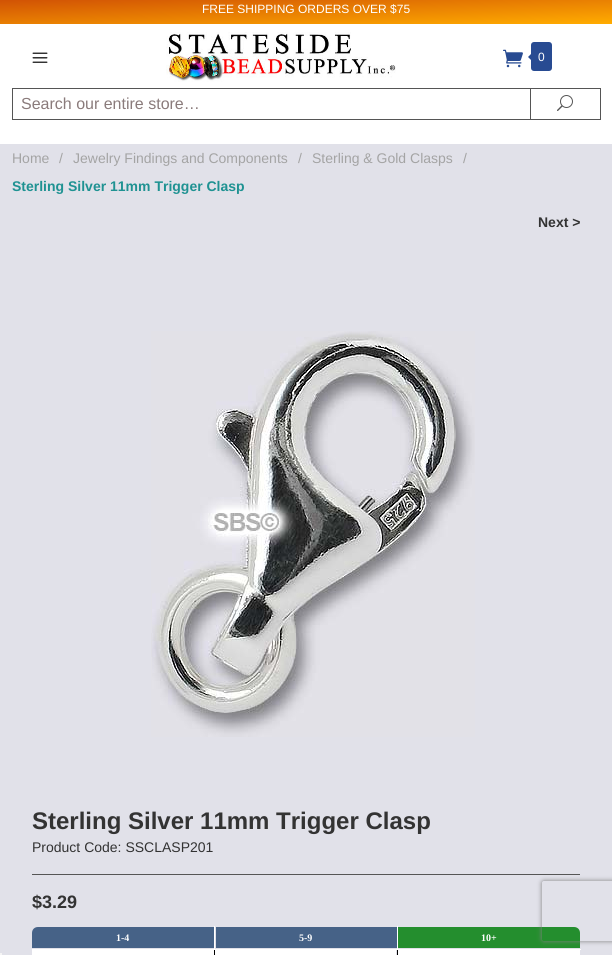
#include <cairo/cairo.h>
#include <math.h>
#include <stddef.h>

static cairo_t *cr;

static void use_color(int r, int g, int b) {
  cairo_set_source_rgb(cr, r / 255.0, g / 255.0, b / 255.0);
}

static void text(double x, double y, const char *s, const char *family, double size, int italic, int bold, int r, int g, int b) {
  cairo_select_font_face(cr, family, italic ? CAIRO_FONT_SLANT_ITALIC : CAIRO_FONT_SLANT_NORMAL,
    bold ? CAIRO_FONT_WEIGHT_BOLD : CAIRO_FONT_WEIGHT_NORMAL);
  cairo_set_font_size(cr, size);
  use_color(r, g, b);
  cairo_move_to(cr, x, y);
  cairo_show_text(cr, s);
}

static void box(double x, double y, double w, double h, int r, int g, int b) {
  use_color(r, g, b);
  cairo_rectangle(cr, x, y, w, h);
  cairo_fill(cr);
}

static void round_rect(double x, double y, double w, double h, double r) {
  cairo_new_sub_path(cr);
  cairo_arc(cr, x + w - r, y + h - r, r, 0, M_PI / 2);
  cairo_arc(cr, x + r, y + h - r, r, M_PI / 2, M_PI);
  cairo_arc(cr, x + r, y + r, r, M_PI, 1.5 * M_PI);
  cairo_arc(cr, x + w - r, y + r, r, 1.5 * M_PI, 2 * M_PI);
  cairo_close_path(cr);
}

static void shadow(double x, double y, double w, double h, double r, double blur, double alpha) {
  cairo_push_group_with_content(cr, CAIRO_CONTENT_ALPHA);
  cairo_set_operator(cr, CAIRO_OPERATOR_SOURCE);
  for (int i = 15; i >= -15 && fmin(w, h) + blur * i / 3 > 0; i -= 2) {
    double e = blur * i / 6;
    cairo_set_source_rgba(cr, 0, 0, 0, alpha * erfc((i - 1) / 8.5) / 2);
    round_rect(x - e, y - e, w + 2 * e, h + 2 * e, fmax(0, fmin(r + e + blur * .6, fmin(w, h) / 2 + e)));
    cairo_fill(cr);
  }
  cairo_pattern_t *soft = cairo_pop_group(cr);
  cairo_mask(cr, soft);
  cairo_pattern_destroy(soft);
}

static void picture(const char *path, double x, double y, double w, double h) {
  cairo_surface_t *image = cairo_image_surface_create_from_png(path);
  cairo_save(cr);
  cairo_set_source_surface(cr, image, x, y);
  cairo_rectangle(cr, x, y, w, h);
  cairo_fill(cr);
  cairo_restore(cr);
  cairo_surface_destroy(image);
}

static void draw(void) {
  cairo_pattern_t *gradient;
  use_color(225, 225, 233);
  cairo_paint(cr);
  box(0, 24, 612, 120, 255, 255, 255);
  gradient = cairo_pattern_create_linear(305, -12, 307, 36);
  cairo_pattern_add_color_stop_rgba(gradient, 0, 0.824, 0.329, 0.016, 1);
  cairo_pattern_add_color_stop_rgba(gradient, 1, 1, 0.671, 0, 1);
  cairo_set_source(cr, gradient);
  cairo_pattern_destroy(gradient);
  cairo_rectangle(cr, 0, 0, 612, 24);
  cairo_fill(cr);
  picture("img_01.png", 32, 52, 16, 11);
  picture("img_02.png", 166, 32, 230, 50);
  picture("img_03.png", 503, 49, 20, 19);
  use_color(40, 75, 146);
  round_rect(532, 43, 19, 27, 2);
  cairo_fill_preserve(cr);
  cairo_stroke(cr);
  cairo_new_path(cr);
  cairo_move_to(cr, 533, 52);
  cairo_line_to(cr, 533, 62);
  cairo_line_to(cr, 528, 57);
  cairo_close_path(cr);
  cairo_fill(cr);
  box(12, 88, 518, 1, 85, 85, 85);
  box(12, 119, 518, 1, 85, 85, 85);
  box(12, 88, 1, 32, 85, 85, 85);
  cairo_rectangle(cr, 530.5, 88.5, 70, 31);
  cairo_set_line_width(cr, 1);
  cairo_stroke(cr);
  picture("img_04.png", 557, 95, 16, 16);
  picture("img_05.png", 151, 331, 324, 406);
  box(32, 874, 548, 1, 85, 85, 85);
  use_color(70, 98, 135);
  cairo_new_path(cr);
  cairo_move_to(cr, 38, 927);
  cairo_line_to(cr, 215, 927);
  cairo_line_to(cr, 215, 948);
  cairo_line_to(cr, 32, 948);
  cairo_line_to(cr, 32, 933);
  cairo_curve_to(cr, 32, 929.5, 34.5, 927, 38, 927);
  cairo_close_path(cr);
  cairo_fill(cr);
  box(216, 927, 181, 21, 70, 98, 135);
  box(397, 950, 183, 5, 255, 255, 255);
  box(397, 949, 1, 6, 0, 0, 0);
  box(397, 949, 184, 1, 255, 255, 255);
  box(397, 926, 1, 24, 255, 255, 255);
  box(214, 949, 1, 6, 0, 0, 0);
  box(214, 949, 184, 1, 255, 255, 255);
  box(214, 926, 1, 24, 255, 255, 255);
  use_color(36, 142, 46);
  cairo_new_path(cr);
  cairo_move_to(cr, 398, 927);
  cairo_line_to(cr, 574, 927);
  cairo_curve_to(cr, 577.5, 927, 580, 929.5, 580, 933);
  cairo_line_to(cr, 580, 948);
  cairo_line_to(cr, 398, 948);
  cairo_close_path(cr);
  cairo_fill(cr);
  box(32, 949, 182, 6, 255, 255, 255);
  box(215, 950, 181, 5, 255, 255, 255);
  cairo_save(cr);
  cairo_set_fill_rule(cr, CAIRO_FILL_RULE_EVEN_ODD);
  cairo_new_path(cr);
  cairo_move_to(cr, 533, 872);
  cairo_line_to(cr, 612, 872);
  cairo_line_to(cr, 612, 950);
  cairo_line_to(cr, 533, 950);
  cairo_close_path(cr);
  cairo_move_to(cr, 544, 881);
  cairo_line_to(cr, 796, 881);
  cairo_curve_to(cr, 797, 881, 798, 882, 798, 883);
  cairo_line_to(cr, 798, 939);
  cairo_curve_to(cr, 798, 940, 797, 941, 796, 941);
  cairo_line_to(cr, 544, 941);
  cairo_curve_to(cr, 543, 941, 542, 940, 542, 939);
  cairo_line_to(cr, 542, 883);
  cairo_curve_to(cr, 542, 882, 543, 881, 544, 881);
  cairo_close_path(cr);
  cairo_clip(cr);
  use_color(128, 128, 128);
  shadow(542, 881, 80, 60, 2, 2.5, 1);
  cairo_restore(cr);
  box(0, 953, 2, 2, 245, 245, 245);
  text(202, 13, "FREE SHIPPING ORDERS OVER $75", "Liberation Sans", 12, 0, 0, 255, 255, 255);
  text(538, 61, "0", "Liberation Sans", 12, 0, 0, 255, 255, 255);
  text(21, 109, "Search our entire store…", "Liberation Sans", 16, 0, 0, 138, 123, 123);
  text(12, 163, "Home", "Liberation Sans", 14, 0, 0, 164, 164, 164);
  text(59, 163, "/", "Liberation Sans", 14, 0, 0, 164, 164, 164);
  text(73, 163, "Jewelry Findings and Components", "Liberation Sans", 14, 0, 0, 164, 164, 164);
  text(298, 163, "/", "Liberation Sans", 14, 0, 0, 164, 164, 164);
  text(312, 163, "Sterling & Gold Clasps", "Liberation Sans", 14, 0, 0, 164, 164, 164);
  text(463, 163, "/", "Liberation Sans", 14, 0, 0, 164, 164, 164);
  text(12, 191, "Sterling Silver 11mm Trigger Clasp", "Liberation Sans", 14, 0, 1, 31, 146, 146);
  text(538, 227, "Next >", "Liberation Sans", 14, 0, 1, 51, 51, 51);
  text(32, 829, "Sterling Silver 11mm Trigger Clasp", "Liberation Sans", 24, 0, 1, 51, 51, 51);
  text(32, 852, "Product Code: SSCLASP201", "Liberation Sans", 14, 0, 0, 51, 51, 51);
  text(32, 908, "$3.29", "Liberation Sans", 18, 0, 1, 51, 51, 51);
  text(116, 941, "1-4", "Liberation Serif", 10, 0, 1, 255, 255, 255);
  text(299, 941, "5-9", "Liberation Serif", 10, 0, 1, 255, 255, 255);
  text(481, 941, "10+", "Liberation Serif", 10, 0, 1, 255, 255, 255);
}

int main(void) {
  cairo_surface_t *surface = cairo_image_surface_create(CAIRO_FORMAT_RGB24, 612, 955);
  cr = cairo_create(surface);
  cairo_font_options_t *options = cairo_font_options_create();
  cairo_font_options_set_hint_metrics(options, CAIRO_HINT_METRICS_OFF);
  cairo_font_options_set_hint_style(options, CAIRO_HINT_STYLE_NONE);
  cairo_set_font_options(cr, options);
  cairo_set_miter_limit(cr, 4);
  draw();
  cairo_surface_write_to_png(surface, "out.png");
  cairo_font_options_destroy(options);
  cairo_destroy(cr);
  cairo_surface_destroy(surface);
  return 0;
}
